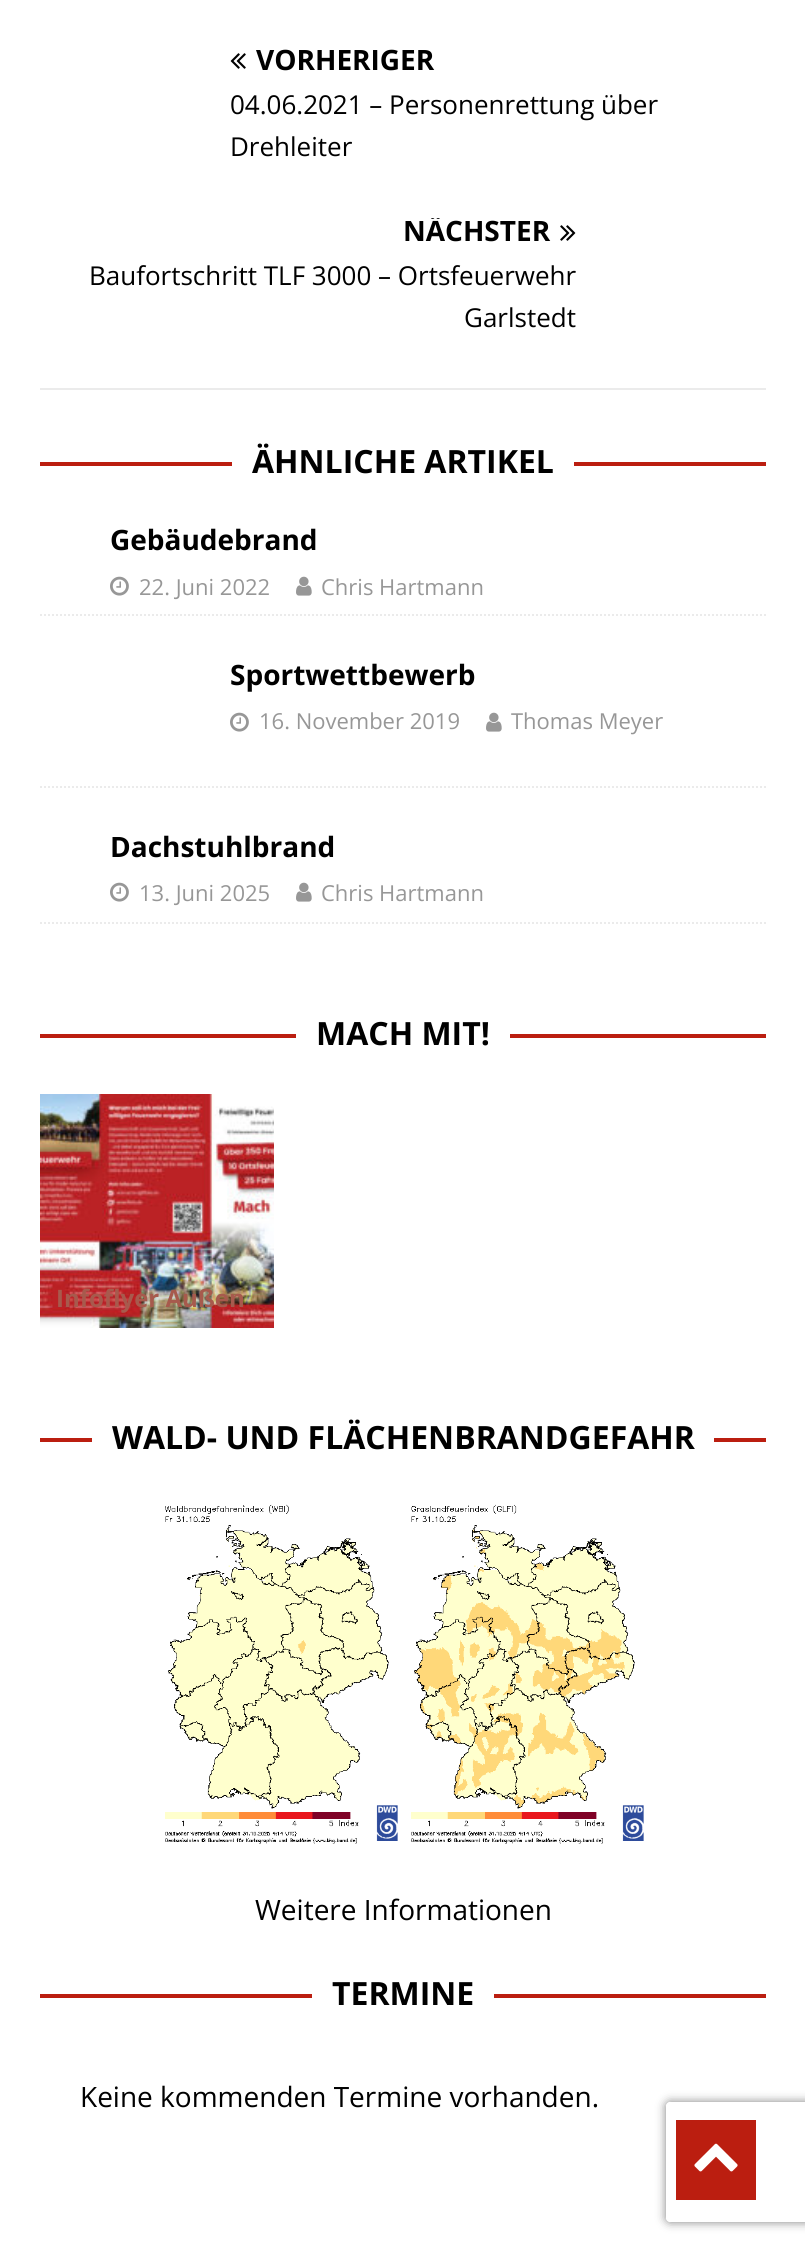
#include <cairo/cairo.h>
#include <math.h>
#include <stddef.h>

static cairo_t *cr;

static void use_color(int r, int g, int b) {
  cairo_set_source_rgb(cr, r / 255.0, g / 255.0, b / 255.0);
}

static void text(double x, double y, const char *s, const char *family, double size, int italic, int bold, int r, int g, int b) {
  cairo_select_font_face(cr, family, italic ? CAIRO_FONT_SLANT_ITALIC : CAIRO_FONT_SLANT_NORMAL,
    bold ? CAIRO_FONT_WEIGHT_BOLD : CAIRO_FONT_WEIGHT_NORMAL);
  cairo_set_font_size(cr, size);
  use_color(r, g, b);
  cairo_move_to(cr, x, y);
  cairo_show_text(cr, s);
}

static void box(double x, double y, double w, double h, int r, int g, int b) {
  use_color(r, g, b);
  cairo_rectangle(cr, x, y, w, h);
  cairo_fill(cr);
}

static void round_rect(double x, double y, double w, double h, double r) {
  cairo_new_sub_path(cr);
  cairo_arc(cr, x + w - r, y + h - r, r, 0, M_PI / 2);
  cairo_arc(cr, x + r, y + h - r, r, M_PI / 2, M_PI);
  cairo_arc(cr, x + r, y + r, r, M_PI, 1.5 * M_PI);
  cairo_arc(cr, x + w - r, y + r, r, 1.5 * M_PI, 2 * M_PI);
  cairo_close_path(cr);
}

static void shadow(double x, double y, double w, double h, double r, double blur, double alpha) {
  cairo_push_group_with_content(cr, CAIRO_CONTENT_ALPHA);
  cairo_set_operator(cr, CAIRO_OPERATOR_SOURCE);
  for (int i = 15; i >= -15 && fmin(w, h) + blur * i / 3 > 0; i -= 2) {
    double e = blur * i / 6;
    cairo_set_source_rgba(cr, 0, 0, 0, alpha * erfc((i - 1) / 8.5) / 2);
    round_rect(x - e, y - e, w + 2 * e, h + 2 * e, fmax(0, fmin(r + e + blur * .6, fmin(w, h) / 2 + e)));
    cairo_fill(cr);
  }
  cairo_pattern_t *soft = cairo_pop_group(cr);
  cairo_mask(cr, soft);
  cairo_pattern_destroy(soft);
}

static void picture(const char *path, double x, double y, double w, double h) {
  cairo_surface_t *image = cairo_image_surface_create_from_png(path);
  cairo_save(cr);
  cairo_set_source_surface(cr, image, x, y);
  cairo_rectangle(cr, x, y, w, h);
  cairo_fill(cr);
  cairo_restore(cr);
  cairo_surface_destroy(image);
}

static void draw(void) {
  use_color(255, 255, 255);
  cairo_paint(cr);
  box(40, 388, 726, 2, 235, 235, 235);
  picture("img_01.png", 230, 53, 16, 16);
  picture("img_02.png", 560, 225, 16, 16);
  box(40, 462, 726, 4, 187, 30, 16);
  box(232, 462, 342, 4, 255, 255, 255);
  cairo_new_path(cr);
  cairo_move_to(cr, 40, 615);
  cairo_line_to(cr, 766, 615);
  use_color(235, 235, 235);
  cairo_set_dash(cr, (double[]){2, 2}, 2, 0);
  cairo_stroke(cr);
  picture("img_03.png", 110, 576, 19, 20);
  picture("img_04.png", 296, 576, 16, 20);
  cairo_new_path(cr);
  cairo_move_to(cr, 40, 787);
  cairo_line_to(cr, 766, 787);
  cairo_stroke(cr);
  picture("img_03.png", 230, 712, 19, 20);
  picture("img_04.png", 486, 712, 16, 20);
  cairo_new_path(cr);
  cairo_move_to(cr, 40, 923);
  cairo_line_to(cr, 766, 923);
  cairo_stroke(cr);
  picture("img_03.png", 110, 882, 19, 20);
  picture("img_04.png", 296, 882, 16, 20);
  box(40, 1034, 726, 4, 187, 30, 16);
  box(296, 1034, 214, 4, 255, 255, 255);
  picture("img_05.png", 40, 1094, 234, 234);
  box(40, 1438, 726, 4, 187, 30, 16);
  box(92, 1438, 622, 4, 255, 255, 255);
  picture("img_06.png", 165, 1504, 233, 340);
  picture("img_07.png", 411, 1504, 233, 340);
  box(40, 1994, 726, 4, 187, 30, 16);
  box(312, 1994, 182, 4, 255, 255, 255);
  cairo_save(cr);
  cairo_set_fill_rule(cr, CAIRO_FILL_RULE_EVEN_ODD);
  cairo_new_path(cr);
  cairo_move_to(cr, 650, 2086);
  cairo_line_to(cr, 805, 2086);
  cairo_line_to(cr, 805, 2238);
  cairo_line_to(cr, 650, 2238);
  cairo_close_path(cr);
  cairo_move_to(cr, 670, 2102);
  cairo_line_to(cr, 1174, 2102);
  cairo_curve_to(cr, 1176, 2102, 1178, 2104, 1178, 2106);
  cairo_line_to(cr, 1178, 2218);
  cairo_curve_to(cr, 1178, 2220, 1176, 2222, 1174, 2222);
  cairo_line_to(cr, 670, 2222);
  cairo_curve_to(cr, 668, 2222, 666, 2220, 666, 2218);
  cairo_line_to(cr, 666, 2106);
  cairo_curve_to(cr, 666, 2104, 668, 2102, 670, 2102);
  cairo_close_path(cr);
  cairo_clip(cr);
  use_color(128, 128, 128);
  shadow(666, 2102, 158, 120, 4, 5, 1);
  cairo_restore(cr);
  box(676, 2120, 80, 80, 187, 30, 16);
  picture("img_08.png", 694, 2143, 44, 29);
  text(256, 70, "VORHERIGER", "Open Sans", 28, 0, 1, 0, 0, 0);
  text(230, 114, "04.06.2021 – Personenrettung über", "Open Sans", 26, 0, 0, 0, 0, 0);
  text(230, 156, "Drehleiter", "Open Sans", 26, 0, 0, 0, 0, 0);
  cairo_save(cr);
  cairo_rectangle(cr, 40, 218, 536, 28);
  cairo_clip(cr);
  text(403, 241, "NÄCHSTER", "Open Sans", 28, 0, 1, 0, 0, 0);
  cairo_restore(cr);
  text(89, 285, "Baufortschritt TLF 3000 – Ortsfeuerwehr", "Open Sans", 26, 0, 0, 0, 0, 0);
  text(464, 327, "Garlstedt", "Open Sans", 26, 0, 0, 0, 0, 0);
  text(252, 473, "ÄHNLICHE ARTIKEL", "Open Sans", 32, 0, 1, 0, 0, 0);
  text(110, 550, "Gebäudebrand", "Open Sans", 28, 0, 1, 0, 0, 0);
  text(139, 595, "22. Juni 2022", "Open Sans", 22, 0, 0, 151, 151, 151);
  text(321, 595, "Chris Hartmann", "Open Sans", 22, 0, 0, 151, 151, 151);
  text(230, 685, "Sportwettbewerb", "Open Sans", 28, 0, 1, 0, 0, 0);
  text(259, 729, "16. November 2019", "Open Sans", 22, 0, 0, 151, 151, 151);
  text(511, 729, "Thomas Meyer", "Open Sans", 22, 0, 0, 151, 151, 151);
  text(110, 857, "Dachstuhlbrand", "Open Sans", 28, 0, 1, 0, 0, 0);
  text(139, 901, "13. Juni 2025", "Open Sans", 22, 0, 0, 151, 151, 151);
  text(321, 901, "Chris Hartmann", "Open Sans", 22, 0, 0, 151, 151, 151);
  text(316, 1045, "MACH MIT!", "Open Sans", 32, 0, 1, 0, 0, 0);
  text(56, 1307, "Infoflyer Außen", "Open Sans", 24, 0, 1, 167, 90, 77);
  text(112, 1449, "WALD- UND FLÄCHENBRANDGEFAHR", "Open Sans", 32, 0, 1, 0, 0, 0);
  text(255, 1920, "Weitere Informationen", "Open Sans", 28, 0, 0, 0, 0, 0);
  text(332, 2005, "TERMINE", "Open Sans", 32, 0, 1, 0, 0, 0);
  text(80, 2107, "Keine kommenden Termine vorhanden.", "Open Sans", 28, 0, 0, 0, 0, 0);
}

int main(void) {
  cairo_surface_t *surface = cairo_image_surface_create(CAIRO_FORMAT_RGB24, 805, 2250);
  cr = cairo_create(surface);
  cairo_font_options_t *options = cairo_font_options_create();
  cairo_font_options_set_hint_metrics(options, CAIRO_HINT_METRICS_OFF);
  cairo_font_options_set_hint_style(options, CAIRO_HINT_STYLE_NONE);
  cairo_set_font_options(cr, options);
  cairo_set_miter_limit(cr, 4);
  draw();
  cairo_surface_write_to_png(surface, "out.png");
  cairo_font_options_destroy(options);
  cairo_destroy(cr);
  cairo_surface_destroy(surface);
  return 0;
}
